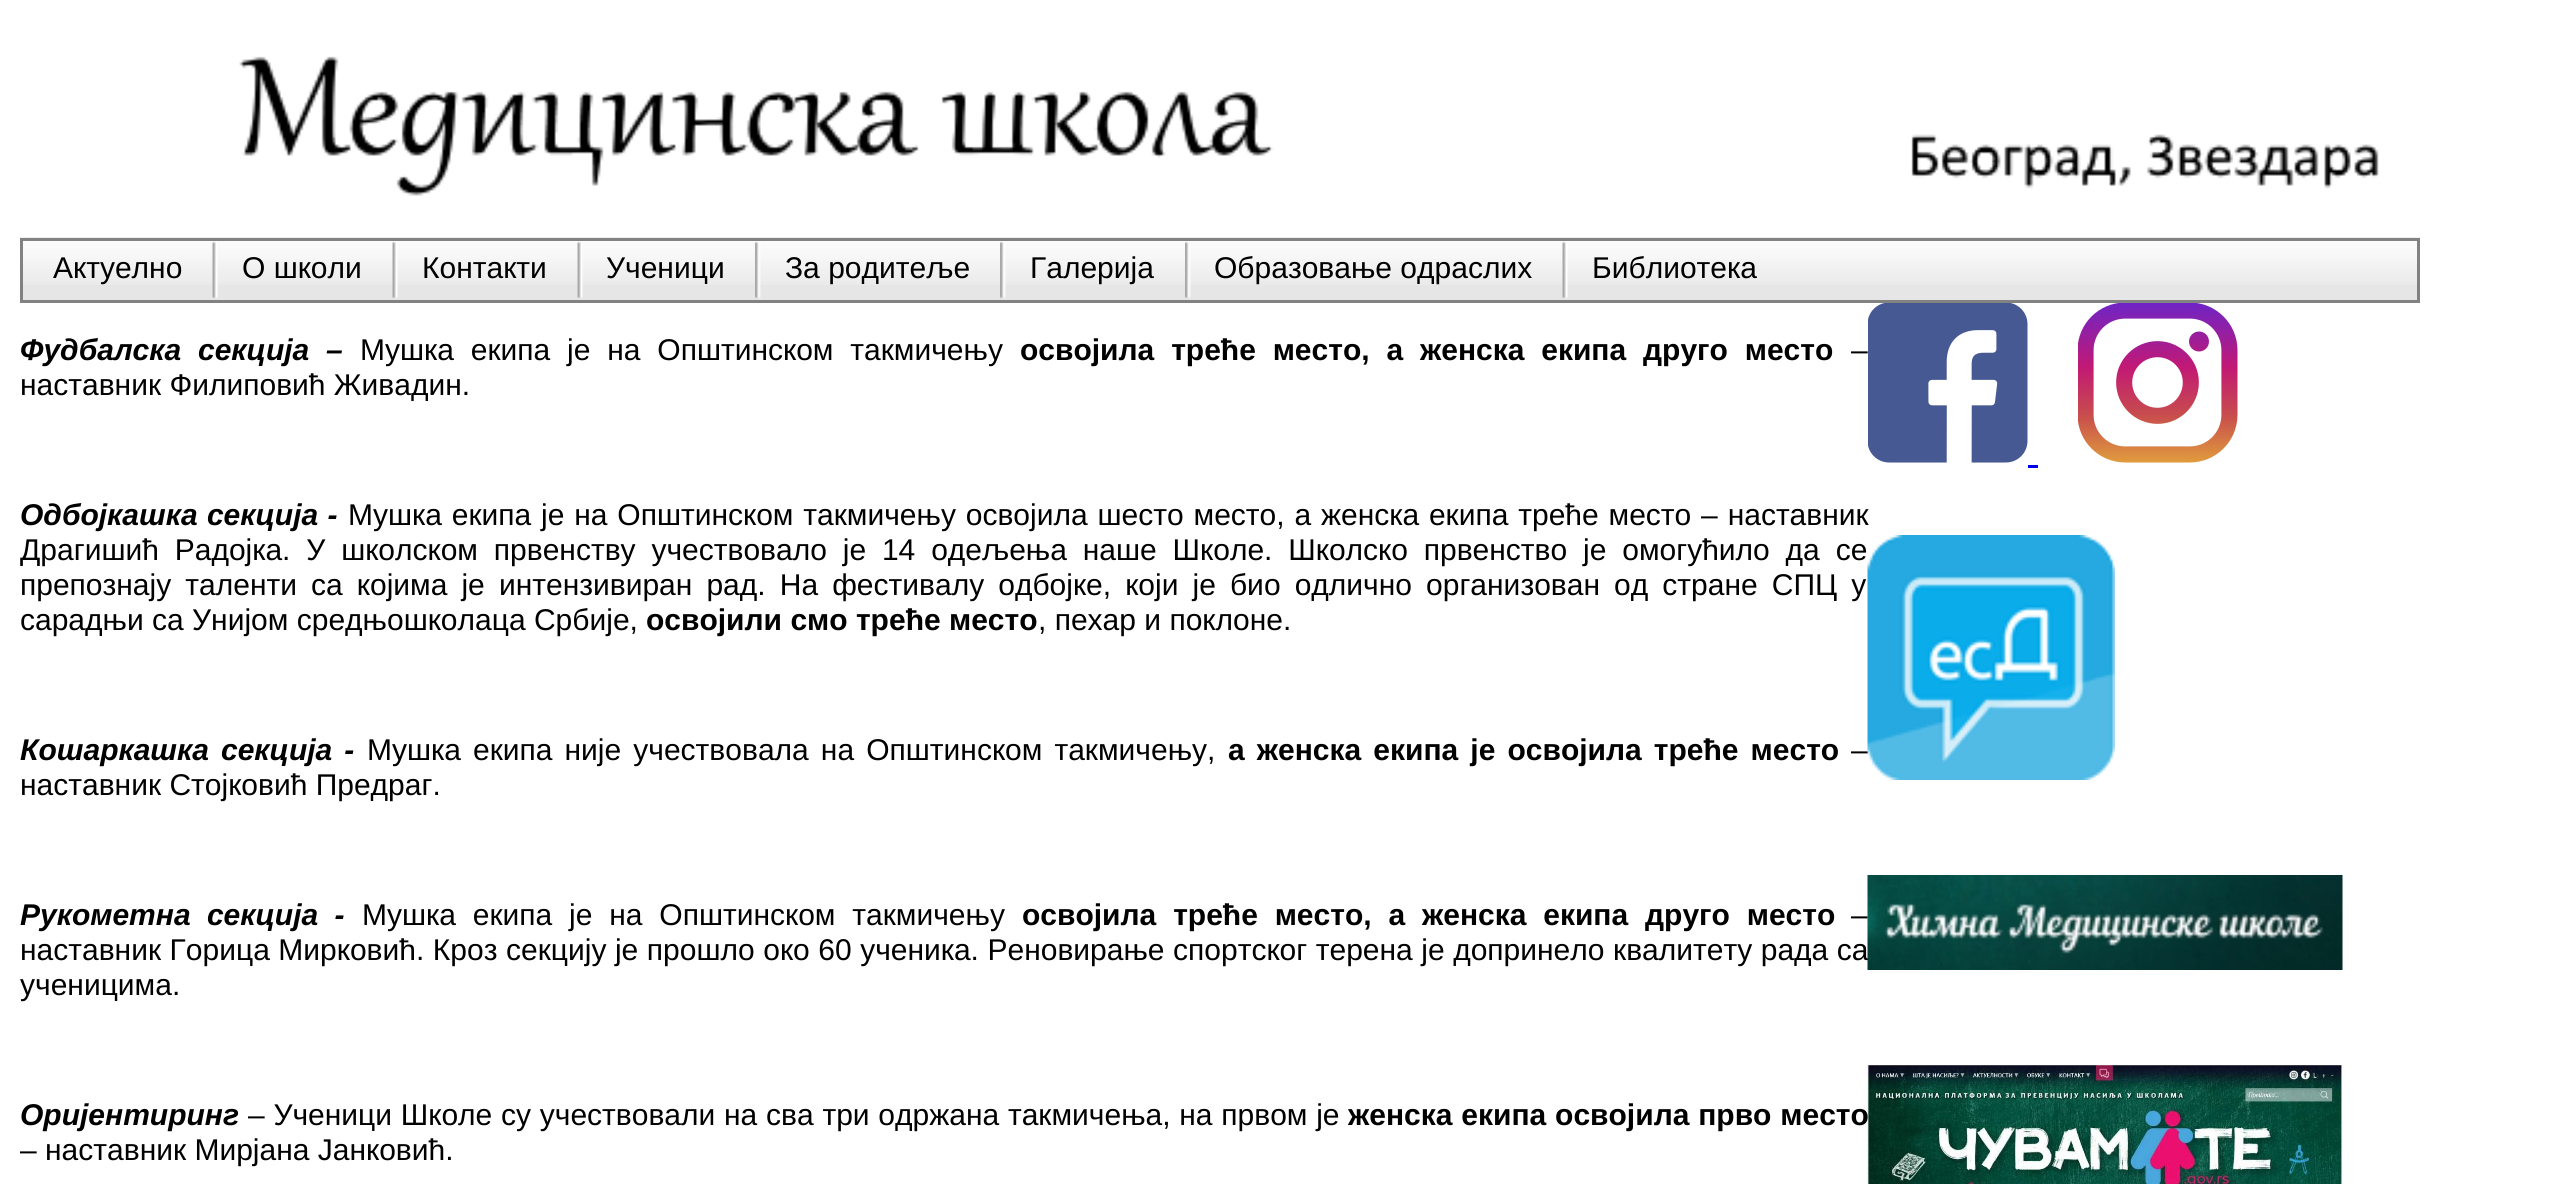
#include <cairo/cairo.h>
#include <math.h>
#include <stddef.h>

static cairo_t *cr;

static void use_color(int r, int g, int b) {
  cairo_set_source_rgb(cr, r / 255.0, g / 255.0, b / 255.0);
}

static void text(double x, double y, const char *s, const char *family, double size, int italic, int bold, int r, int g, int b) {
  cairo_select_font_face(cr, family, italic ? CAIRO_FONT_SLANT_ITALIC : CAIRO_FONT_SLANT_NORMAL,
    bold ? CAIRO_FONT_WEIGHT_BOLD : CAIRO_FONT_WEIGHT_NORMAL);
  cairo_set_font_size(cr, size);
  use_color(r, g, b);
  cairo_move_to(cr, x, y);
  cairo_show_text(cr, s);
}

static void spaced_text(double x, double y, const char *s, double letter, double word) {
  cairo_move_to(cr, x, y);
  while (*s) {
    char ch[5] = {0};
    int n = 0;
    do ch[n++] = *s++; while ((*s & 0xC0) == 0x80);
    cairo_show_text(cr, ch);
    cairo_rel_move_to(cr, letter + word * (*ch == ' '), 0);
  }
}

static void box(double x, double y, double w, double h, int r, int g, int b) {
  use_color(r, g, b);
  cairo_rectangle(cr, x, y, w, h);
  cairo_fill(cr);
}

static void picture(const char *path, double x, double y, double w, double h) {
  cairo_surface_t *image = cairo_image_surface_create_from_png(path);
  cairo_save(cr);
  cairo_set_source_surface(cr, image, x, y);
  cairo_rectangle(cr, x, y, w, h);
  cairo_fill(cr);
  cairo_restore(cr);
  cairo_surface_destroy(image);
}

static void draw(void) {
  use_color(255, 255, 255);
  cairo_paint(cr);
  picture("img_01.png", 239, 56, 2140, 140);
  box(23, 285, 2394, 15, 230, 230, 230);
  picture("img_02.png", 20, 237, 2400, 48);
  cairo_rectangle(cr, 21.5, 239.5, 2397, 62);
  use_color(130, 130, 130);
  cairo_set_line_width(cr, 3);
  cairo_stroke(cr);
  picture("img_03.png", 212, 241, 6, 58);
  picture("img_03.png", 392, 241, 6, 58);
  picture("img_04.png", 577, 241, 6, 58);
  picture("img_05.png", 755, 241, 6, 58);
  picture("img_06.png", 1000, 241, 6, 58);
  picture("img_05.png", 1185, 241, 6, 58);
  picture("img_03.png", 1562, 241, 6, 58);
  picture("img_07.png", 1868, 303, 160, 160);
  picture("img_08.png", 2078, 303, 160, 160);
  box(2028, 465, 10, 3, 0, 0, 238);
  picture("img_11.png", 1867, 1065, 476, 119);
  text(53, 278, "Актуелно", "Liberation Sans", 30, 0, 0, 0, 0, 0);
  text(242, 278, "О школи", "Liberation Sans", 30, 0, 0, 0, 0, 0);
  text(422, 278, "Контакти", "Liberation Sans", 30, 0, 0, 0, 0, 0);
  text(606, 278, "Ученици", "Liberation Sans", 30, 0, 0, 0, 0, 0);
  text(785, 278, "За родитеље", "Liberation Sans", 30, 0, 0, 0, 0, 0);
  text(1030, 278, "Галерија", "Liberation Sans", 30, 0, 0, 0, 0, 0);
  text(1214, 278, "Образовање одраслих", "Liberation Sans", 30, 0, 0, 0, 0, 0);
  text(1592, 278, "Библиотека", "Liberation Sans", 30, 0, 0, 0, 0, 0);
  cairo_select_font_face(cr, "Liberation Sans", CAIRO_FONT_SLANT_ITALIC, CAIRO_FONT_WEIGHT_BOLD);
  spaced_text(20, 360, "Фудбалска секција –", 0, 8.5);
  cairo_select_font_face(cr, "Liberation Sans", CAIRO_FONT_SLANT_NORMAL, CAIRO_FONT_WEIGHT_NORMAL);
  spaced_text(360, 360, "Мушка екипа је на Општинском такмичењу", 0, 8.5);
  cairo_select_font_face(cr, "Liberation Sans", CAIRO_FONT_SLANT_NORMAL, CAIRO_FONT_WEIGHT_BOLD);
  spaced_text(1020, 360, "освојила треће место, а женска екипа друго место", 0, 8.5);
  text(1851, 360, "–", "Liberation Sans", 30, 0, 0, 0, 0, 0);
  text(20, 395, "наставник Филиповић Живадин.", "Liberation Sans", 30, 0, 0, 0, 0, 0);
  cairo_select_font_face(cr, "Liberation Sans", CAIRO_FONT_SLANT_ITALIC, CAIRO_FONT_WEIGHT_BOLD);
  spaced_text(20, 525, "Одбојкашка секција -", 0, 1);
  cairo_select_font_face(cr, "Liberation Sans", CAIRO_FONT_SLANT_NORMAL, CAIRO_FONT_WEIGHT_NORMAL);
  spaced_text(348, 525, "Мушка екипа је на Општинском такмичењу освојила шесто место, а женска екипа треће место – наставник", 0, 1.5);
  spaced_text(20, 560, "Драгишић Радојка. У школском првенству учествовало је 14 одељења наше Школе. Школско првенство је омогућило да се", 0, 7.5);
  spaced_text(20, 595, "препознају таленти са којима је интензивиран рад. На фестивалу одбојке, који је био одлично организован од стране СПЦ у", 0, 5.75);
  text(20, 630, "сарадњи са Унијом средњошколаца Србије,", "Liberation Sans", 30, 0, 0, 0, 0, 0);
  text(646, 630, "освојили смо треће место", "Liberation Sans", 30, 0, 1, 0, 0, 0);
  text(1038, 630, ", пехар и поклоне.", "Liberation Sans", 30, 0, 0, 0, 0, 0);
  cairo_select_font_face(cr, "Liberation Sans", CAIRO_FONT_SLANT_ITALIC, CAIRO_FONT_WEIGHT_BOLD);
  spaced_text(20, 760, "Кошаркашка секција -", 0, 3.75);
  cairo_select_font_face(cr, "Liberation Sans", CAIRO_FONT_SLANT_NORMAL, CAIRO_FONT_WEIGHT_NORMAL);
  spaced_text(367, 760, "Мушка екипа није учествовала на Општинском такмичењу,", 0, 3.75);
  cairo_select_font_face(cr, "Liberation Sans", CAIRO_FONT_SLANT_NORMAL, CAIRO_FONT_WEIGHT_BOLD);
  spaced_text(1228, 760, "а женска екипа је освојила треће место", 0, 3.75);
  text(1851, 760, "–", "Liberation Sans", 30, 0, 0, 0, 0, 0);
  text(20, 795, "наставник Стојковић Предраг.", "Liberation Sans", 30, 0, 0, 0, 0, 0);
  cairo_select_font_face(cr, "Liberation Sans", CAIRO_FONT_SLANT_ITALIC, CAIRO_FONT_WEIGHT_BOLD);
  spaced_text(20, 925, "Рукометна секција -", 0, 8);
  cairo_select_font_face(cr, "Liberation Sans", CAIRO_FONT_SLANT_NORMAL, CAIRO_FONT_WEIGHT_NORMAL);
  spaced_text(362, 925, "Мушка екипа је на Општинском такмичењу", 0, 8.5);
  cairo_select_font_face(cr, "Liberation Sans", CAIRO_FONT_SLANT_NORMAL, CAIRO_FONT_WEIGHT_BOLD);
  spaced_text(1022, 925, "освојила треће место, а женска екипа друго место", 0, 8.5);
  text(1851, 925, "–", "Liberation Sans", 30, 0, 0, 0, 0, 0);
  spaced_text(20, 960, "наставник Горица Мирковић. Кроз секцију је прошло око 60 ученика. Реновирање спортског терена је допринело квалитету рада са", 0, 0.2);
  text(20, 995, "ученицима.", "Liberation Sans", 30, 0, 0, 0, 0, 0);
  text(20, 1125, "Оријентиринг", "Liberation Sans", 30, 1, 1, 0, 0, 0);
  cairo_select_font_face(cr, "Liberation Sans", CAIRO_FONT_SLANT_NORMAL, CAIRO_FONT_WEIGHT_NORMAL);
  spaced_text(248, 1125, "– Ученици Школе су учествовали на сва три одржана такмичења, на првом је", 0, 0.4);
  cairo_select_font_face(cr, "Liberation Sans", CAIRO_FONT_SLANT_NORMAL, CAIRO_FONT_WEIGHT_BOLD);
  spaced_text(1348, 1125, "женска екипа освојила прво место", 0, 0.5);
  text(20, 1160, "– наставник Мирјана Јанковић.", "Liberation Sans", 30, 0, 0, 0, 0, 0);
  picture("img_09.png", 1867, 535, 248, 245);
  picture("img_10.png", 1867, 875, 476, 95);
}

int main(void) {
  cairo_surface_t *surface = cairo_image_surface_create(CAIRO_FORMAT_RGB24, 2564, 1184);
  cr = cairo_create(surface);
  cairo_font_options_t *options = cairo_font_options_create();
  cairo_font_options_set_hint_metrics(options, CAIRO_HINT_METRICS_OFF);
  cairo_font_options_set_hint_style(options, CAIRO_HINT_STYLE_NONE);
  cairo_set_font_options(cr, options);
  cairo_set_miter_limit(cr, 4);
  draw();
  cairo_surface_write_to_png(surface, "out.png");
  cairo_font_options_destroy(options);
  cairo_destroy(cr);
  cairo_surface_destroy(surface);
  return 0;
}
